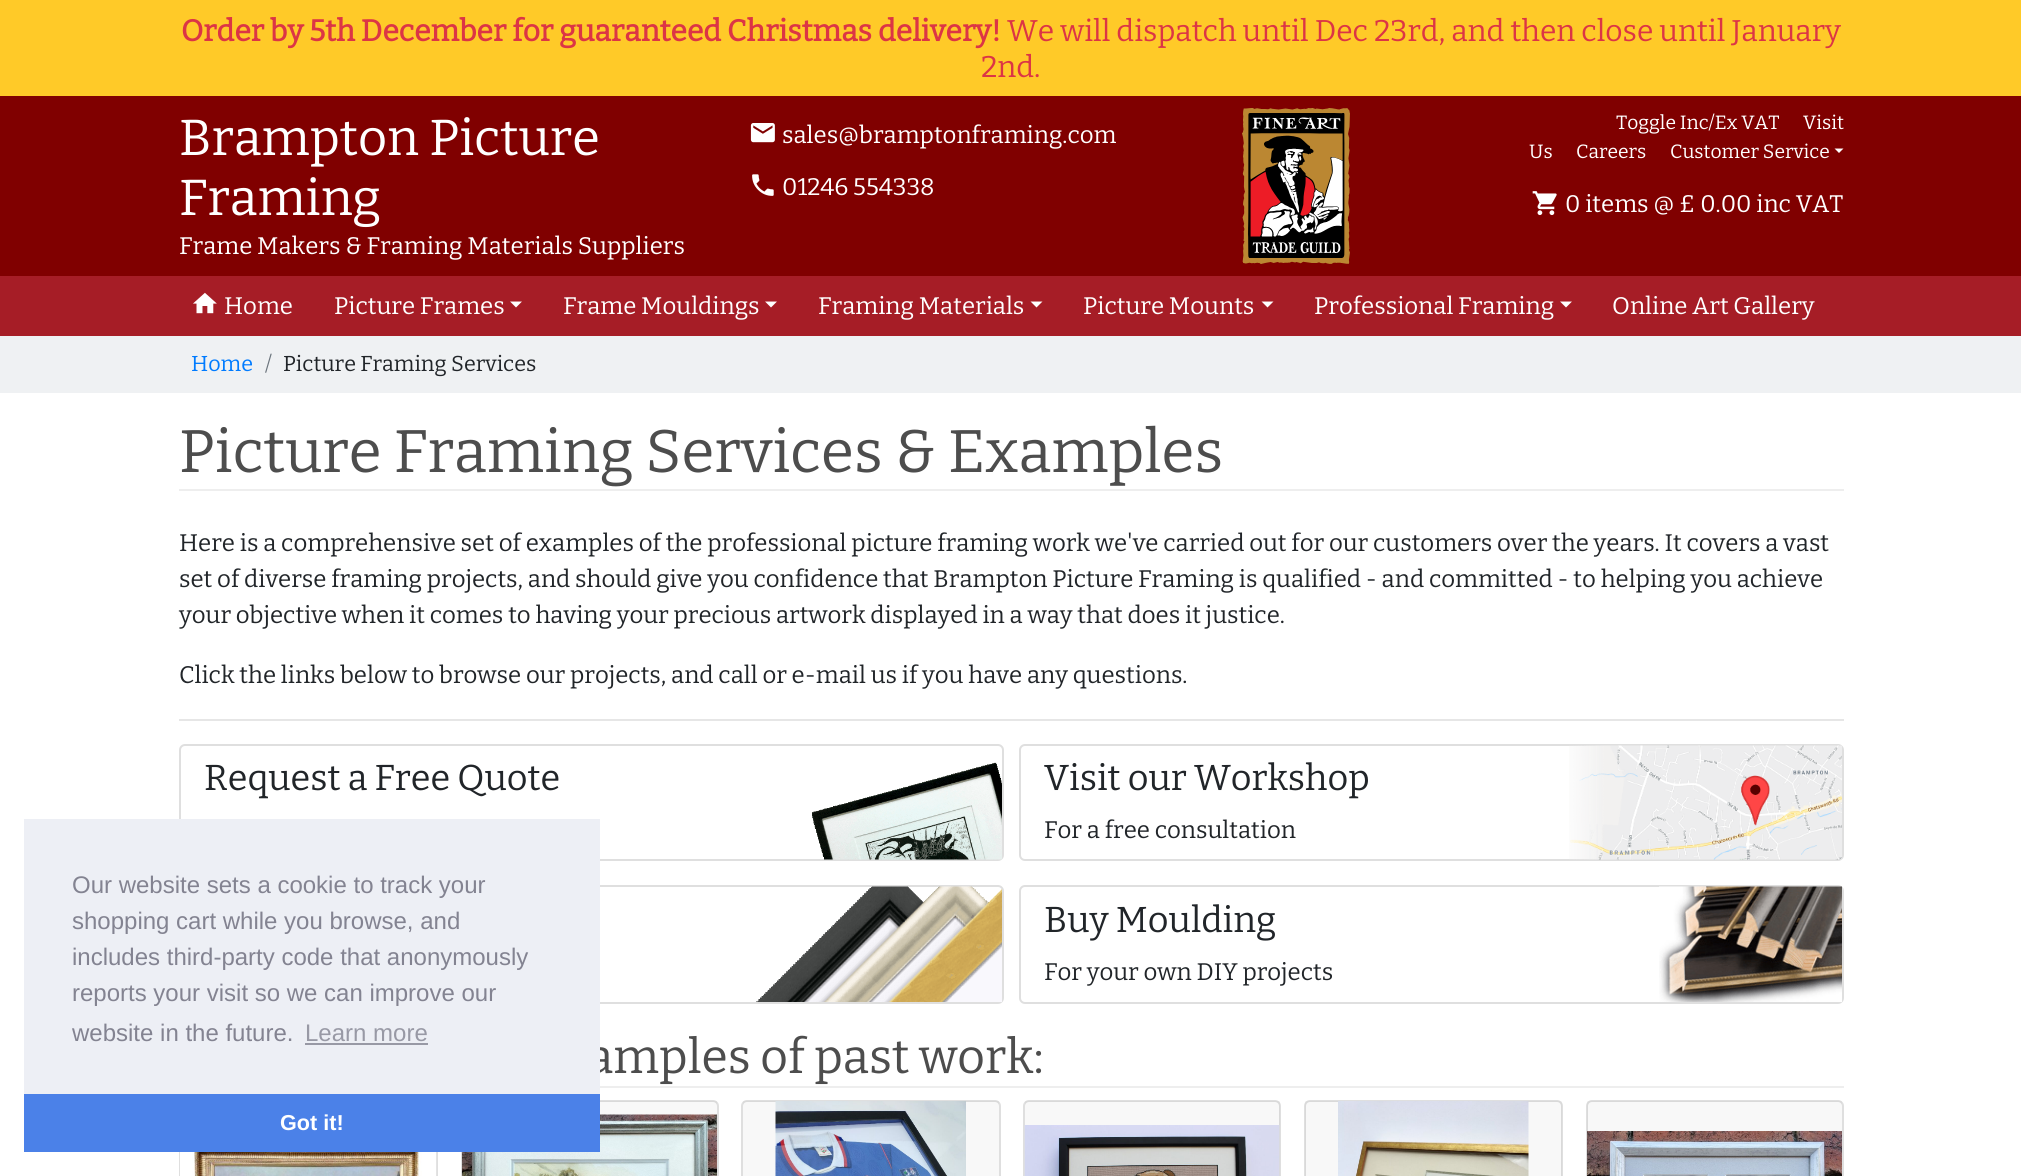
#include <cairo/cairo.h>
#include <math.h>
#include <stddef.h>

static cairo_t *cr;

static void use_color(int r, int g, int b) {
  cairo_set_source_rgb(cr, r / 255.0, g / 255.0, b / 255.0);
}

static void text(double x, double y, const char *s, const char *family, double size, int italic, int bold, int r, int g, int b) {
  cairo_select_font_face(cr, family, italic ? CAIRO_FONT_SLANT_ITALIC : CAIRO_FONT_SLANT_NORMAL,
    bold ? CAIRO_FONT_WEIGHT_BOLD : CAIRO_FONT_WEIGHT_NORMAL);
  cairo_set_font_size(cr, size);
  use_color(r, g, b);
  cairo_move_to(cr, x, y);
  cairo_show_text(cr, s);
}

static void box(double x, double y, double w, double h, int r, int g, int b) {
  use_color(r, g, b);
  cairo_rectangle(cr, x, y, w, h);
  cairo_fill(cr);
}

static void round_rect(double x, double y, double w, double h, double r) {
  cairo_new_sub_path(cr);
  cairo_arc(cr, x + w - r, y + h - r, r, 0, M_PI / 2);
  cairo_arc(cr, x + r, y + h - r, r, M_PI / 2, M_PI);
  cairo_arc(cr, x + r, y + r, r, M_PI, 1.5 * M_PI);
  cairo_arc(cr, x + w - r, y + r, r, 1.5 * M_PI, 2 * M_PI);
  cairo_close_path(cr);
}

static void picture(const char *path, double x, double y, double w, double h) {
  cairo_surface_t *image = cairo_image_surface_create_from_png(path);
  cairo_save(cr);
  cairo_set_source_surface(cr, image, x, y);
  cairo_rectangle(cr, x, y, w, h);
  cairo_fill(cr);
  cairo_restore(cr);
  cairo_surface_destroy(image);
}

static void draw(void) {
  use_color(255, 255, 255);
  cairo_paint(cr);
  box(0, 0, 2021, 96, 255, 202, 40);
  box(0, 96, 2021, 180, 128, 0, 0);
  picture("img_01.png", 750, 123, 25, 20);
  picture("img_02.png", 752, 174, 22, 22);
  picture("img_03.png", 1242, 108, 108, 156);
  use_color(255, 255, 255);
  cairo_new_path(cr);
  cairo_move_to(cr, 1834.5, 148.5);
  cairo_line_to(cr, 1843.5, 148.5);
  cairo_line_to(cr, 1839, 153);
  cairo_close_path(cr);
  cairo_fill(cr);
  picture("img_04.png", 1532, 191, 25, 25);
  box(0, 276, 2021, 60, 166, 29, 38);
  picture("img_05.png", 193, 292, 24, 22);
  use_color(255, 255, 255);
  cairo_new_path(cr);
  cairo_move_to(cr, 510, 301.5);
  cairo_line_to(cr, 522, 301.5);
  cairo_line_to(cr, 516, 307.5);
  cairo_close_path(cr);
  cairo_fill(cr);
  cairo_new_path(cr);
  cairo_move_to(cr, 765, 301.5);
  cairo_line_to(cr, 777, 301.5);
  cairo_line_to(cr, 771, 307.5);
  cairo_close_path(cr);
  cairo_fill(cr);
  cairo_new_path(cr);
  cairo_move_to(cr, 1030.5, 301.5);
  cairo_line_to(cr, 1042.5, 301.5);
  cairo_line_to(cr, 1036.5, 307.5);
  cairo_close_path(cr);
  cairo_fill(cr);
  cairo_new_path(cr);
  cairo_move_to(cr, 1261.5, 301.5);
  cairo_line_to(cr, 1273.5, 301.5);
  cairo_line_to(cr, 1267.5, 307.5);
  cairo_close_path(cr);
  cairo_fill(cr);
  cairo_new_path(cr);
  cairo_move_to(cr, 1560, 301.5);
  cairo_line_to(cr, 1572, 301.5);
  cairo_line_to(cr, 1566, 307.5);
  cairo_close_path(cr);
  cairo_fill(cr);
  box(0, 336, 2021, 57, 239, 241, 243);
  box(179, 489, 1665, 2, 238, 238, 238);
  box(179, 719, 1665, 2, 230, 230, 230);
  round_rect(180, 745, 823, 115, 5);
  use_color(223, 223, 223);
  cairo_stroke(cr);
  picture("img_06.png", 812, 762, 190, 98);
  round_rect(1020, 745, 823, 115, 5);
  cairo_stroke(cr);
  picture("img_07.png", 1569, 745, 273, 115);
  round_rect(180, 886, 823, 117, 5);
  cairo_stroke(cr);
  picture("img_08.png", 756, 886, 246, 116);
  round_rect(1020, 886, 823, 117, 5);
  cairo_stroke(cr);
  picture("img_09.png", 1659, 886, 183, 116);
  box(600, 1086, 1244, 2, 238, 238, 238);
  cairo_rectangle(cr, 180, 1101, 257, 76);
  use_color(223, 223, 223);
  cairo_stroke(cr);
  cairo_set_source_rgba(cr, 0, 0, 0, 0.03);
  cairo_rectangle(cr, 436, 1152, 1, 24);
  cairo_fill(cr);
  picture("img_10.png", 180, 1152, 257, 24);
  round_rect(462, 1101, 256, 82, 5);
  use_color(223, 223, 223);
  cairo_stroke(cr);
  cairo_set_source_rgba(cr, 0, 0, 0, 0.03);
  cairo_rectangle(cr, 600, 1101, 117, 14);
  cairo_fill(cr);
  picture("img_11.png", 462, 1114, 255, 62);
  round_rect(742, 1101, 258, 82, 5);
  use_color(223, 223, 223);
  cairo_stroke(cr);
  cairo_set_source_rgba(cr, 0, 0, 0, 0.03);
  cairo_rectangle(cr, 743, 1101, 256, 75);
  cairo_fill(cr);
  picture("img_12.png", 775, 1101, 191, 75);
  round_rect(1024, 1101, 256, 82, 5);
  use_color(223, 223, 223);
  cairo_stroke(cr);
  cairo_set_source_rgba(cr, 0, 0, 0, 0.03);
  cairo_rectangle(cr, 1025, 1101, 255, 75);
  cairo_fill(cr);
  picture("img_13.png", 1024, 1125, 256, 51);
  round_rect(1305, 1101, 257, 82, 5);
  use_color(223, 223, 223);
  cairo_stroke(cr);
  cairo_set_source_rgba(cr, 0, 0, 0, 0.03);
  cairo_rectangle(cr, 1305, 1101, 257, 75);
  cairo_fill(cr);
  picture("img_14.png", 1338, 1101, 191, 75);
  round_rect(1587, 1101, 256, 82, 5);
  use_color(223, 223, 223);
  cairo_stroke(cr);
  cairo_set_source_rgba(cr, 0, 0, 0, 0.03);
  cairo_rectangle(cr, 1587, 1101, 255, 30);
  cairo_fill(cr);
  picture("img_15.png", 1587, 1131, 255, 45);
  box(24, 1094, 576, 58, 75, 129, 232);
  text(181, 41, "Order by 5th December for guaranteed Christmas delivery!", "Bitter", 30, 0, 1, 220, 53, 69);
  text(1007, 41, "We will dispatch until Dec 23rd, and then close until January", "Bitter Thin", 30, 0, 0, 220, 53, 69);
  text(981, 77, "2nd.", "Bitter Thin", 30, 0, 0, 220, 53, 69);
  text(179, 155, "Brampton Picture", "Bitter Thin", 50.5, 0, 0, 255, 255, 255);
  text(179, 215, "Framing", "Bitter Thin", 50.5, 0, 0, 255, 255, 255);
  text(179, 254, "Frame Makers & Framing Materials Suppliers", "Bitter Thin", 24, 0, 0, 255, 255, 255);
  text(782, 143, "sales@bramptonframing.com", "Bitter Thin", 24, 0, 0, 255, 255, 255);
  text(782, 195, "01246 554338", "Bitter Thin", 24, 0, 0, 255, 255, 255);
  text(1616, 129, "Toggle Inc/Ex VAT", "Bitter Thin", 19.25, 0, 0, 255, 255, 255);
  text(1803, 129, "Visit", "Bitter Thin", 19.25, 0, 0, 255, 255, 255);
  text(1529, 158, "Us", "Bitter Thin", 19.25, 0, 0, 255, 255, 255);
  text(1576, 158, "Careers", "Bitter Thin", 19.25, 0, 0, 255, 255, 255);
  text(1670, 158, "Customer Service", "Bitter Thin", 19.25, 0, 0, 255, 255, 255);
  text(1565, 212, "0 items @ £ 0.00 inc VAT", "Bitter Thin", 24, 0, 0, 255, 255, 255);
  text(224, 314, "Home", "Bitter Thin", 24, 0, 0, 255, 255, 255);
  text(334, 314, "Picture Frames", "Bitter Thin", 24, 0, 0, 255, 255, 255);
  text(563, 314, "Frame Mouldings", "Bitter Thin", 24, 0, 0, 255, 255, 255);
  text(818, 314, "Framing Materials", "Bitter Thin", 24, 0, 0, 255, 255, 255);
  text(1083, 314, "Picture Mounts", "Bitter Thin", 24, 0, 0, 255, 255, 255);
  text(1314, 314, "Professional Framing", "Bitter Thin", 24, 0, 0, 255, 255, 255);
  text(1612, 314, "Online Art Gallery", "Bitter Thin", 24, 0, 0, 255, 255, 255);
  text(191, 371, "Home", "Bitter Thin", 21.6, 0, 0, 0, 123, 255);
  text(265, 371, "/", "Bitter Thin", 21.6, 0, 0, 108, 117, 125);
  text(283, 371, "Picture Framing Services", "Bitter Thin", 21.6, 0, 0, 33, 37, 41);
  text(179, 472, "Picture Framing Services & Examples", "Bitter Thin", 60, 0, 0, 77, 77, 77);
  text(179, 551, "Here is a comprehensive set of examples of the professional picture framing work we've carried out for our customers over the years. It covers a vast", "Bitter Thin", 24, 0, 0, 33, 37, 41);
  text(179, 587, "set of diverse framing projects, and should give you confidence that Brampton Picture Framing is qualified - and committed - to helping you achieve", "Bitter Thin", 24, 0, 0, 33, 37, 41);
  text(179, 623, "your objective when it comes to having your precious artwork displayed in a way that does it justice.", "Bitter Thin", 24, 0, 0, 33, 37, 41);
  text(179, 683, "Click the links below to browse our projects, and call or e-mail us if you have any questions.", "Bitter Thin", 24, 0, 0, 33, 37, 41);
  text(204, 790, "Request a Free Quote", "Bitter Thin", 36, 0, 0, 33, 37, 41);
  text(1044, 790, "Visit our Workshop", "Bitter Thin", 36, 0, 0, 33, 37, 41);
  text(1044, 838, "For a free consultation", "Bitter Thin", 24, 0, 0, 33, 37, 41);
  text(1044, 932, "Buy Moulding", "Bitter Thin", 36, 0, 0, 33, 37, 41);
  text(1044, 980, "For your own DIY projects", "Bitter Thin", 24, 0, 0, 33, 37, 41);
  text(587, 1073, "amples of past work:", "Bitter Thin", 48, 0, 0, 77, 77, 77);
  box(24, 819, 576, 275, 237, 239, 245);
  text(72, 893, "Our website sets a cookie to track your", "Liberation Sans", 24, 0, 0, 131, 131, 145);
  text(72, 929, "shopping cart while you browse, and", "Liberation Sans", 24, 0, 0, 131, 131, 145);
  text(72, 965, "includes third-party code that anonymously", "Liberation Sans", 24, 0, 0, 131, 131, 145);
  text(72, 1001, "reports your visit so we can improve our", "Liberation Sans", 24, 0, 0, 131, 131, 145);
  text(72, 1041, "website in the future.", "Liberation Sans", 24, 0, 0, 131, 131, 145);
  text(305, 1041, "Learn more", "Liberation Sans", 24, 0, 0, 152, 153, 165);
  box(305, 1043, 123, 2, 152, 153, 165);
  text(280, 1130, "Got it!", "Liberation Sans", 21.6, 0, 1, 255, 255, 255);
}

int main(void) {
  cairo_surface_t *surface = cairo_image_surface_create(CAIRO_FORMAT_RGB24, 2021, 1176);
  cr = cairo_create(surface);
  cairo_font_options_t *options = cairo_font_options_create();
  cairo_font_options_set_hint_metrics(options, CAIRO_HINT_METRICS_OFF);
  cairo_font_options_set_hint_style(options, CAIRO_HINT_STYLE_NONE);
  cairo_set_font_options(cr, options);
  cairo_set_miter_limit(cr, 4);
  draw();
  cairo_surface_write_to_png(surface, "out.png");
  cairo_font_options_destroy(options);
  cairo_destroy(cr);
  cairo_surface_destroy(surface);
  return 0;
}
